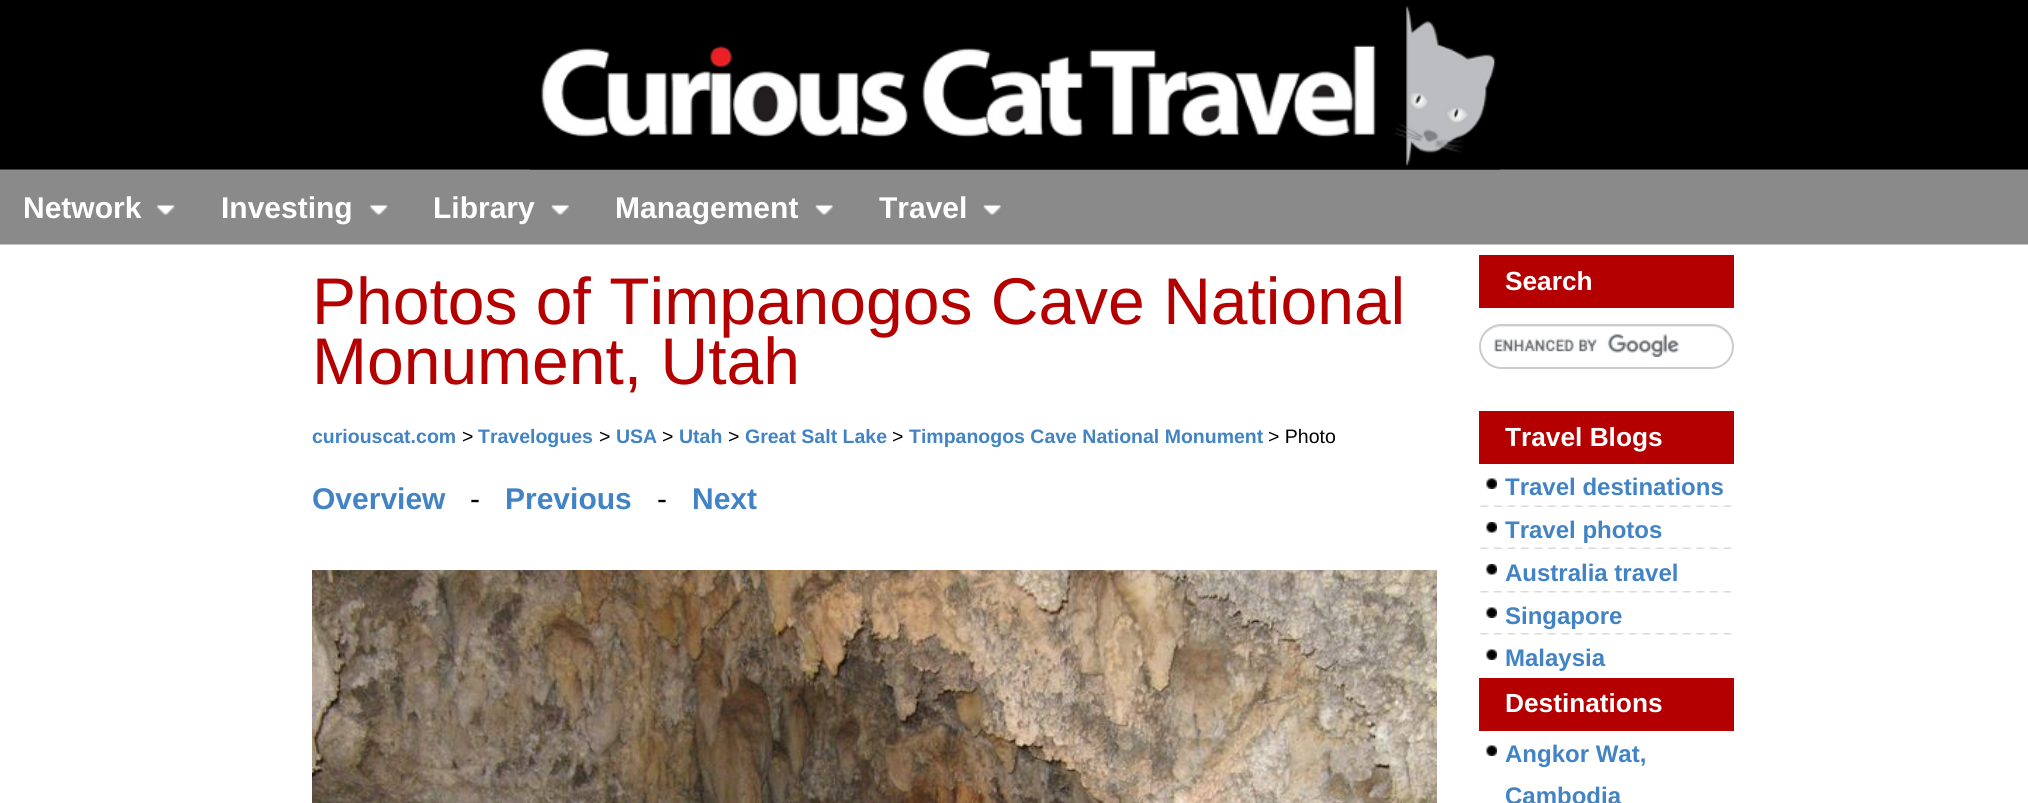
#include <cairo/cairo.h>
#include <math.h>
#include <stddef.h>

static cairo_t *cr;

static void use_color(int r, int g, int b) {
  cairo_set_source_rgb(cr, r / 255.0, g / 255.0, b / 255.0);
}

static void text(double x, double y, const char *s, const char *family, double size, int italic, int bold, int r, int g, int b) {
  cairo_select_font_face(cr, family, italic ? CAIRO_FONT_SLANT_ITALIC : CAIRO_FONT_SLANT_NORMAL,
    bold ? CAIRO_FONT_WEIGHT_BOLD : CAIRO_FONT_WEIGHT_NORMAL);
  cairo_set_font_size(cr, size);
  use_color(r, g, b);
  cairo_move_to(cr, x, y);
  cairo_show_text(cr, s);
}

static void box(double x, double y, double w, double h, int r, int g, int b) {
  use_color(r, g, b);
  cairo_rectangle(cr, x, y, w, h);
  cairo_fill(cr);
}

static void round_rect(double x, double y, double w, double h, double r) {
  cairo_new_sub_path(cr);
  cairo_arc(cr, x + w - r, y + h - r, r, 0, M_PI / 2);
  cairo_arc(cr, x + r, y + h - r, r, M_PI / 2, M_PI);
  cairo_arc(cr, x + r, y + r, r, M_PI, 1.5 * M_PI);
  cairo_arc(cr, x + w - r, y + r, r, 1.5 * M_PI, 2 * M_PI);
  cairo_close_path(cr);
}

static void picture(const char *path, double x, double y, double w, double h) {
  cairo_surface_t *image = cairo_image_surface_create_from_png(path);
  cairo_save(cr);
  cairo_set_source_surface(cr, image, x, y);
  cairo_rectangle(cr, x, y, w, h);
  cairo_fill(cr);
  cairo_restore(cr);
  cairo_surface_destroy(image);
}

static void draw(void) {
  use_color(255, 255, 255);
  cairo_paint(cr);
  picture("img_01.png", 0, 0, 2028, 245);
  picture("img_02.png", 529, 5, 971, 165);
  picture("img_03.png", 156, 205, 19, 10);
  picture("img_04.png", 369, 205, 19, 10);
  picture("img_05.png", 551, 205, 18, 10);
  picture("img_06.png", 815, 205, 18, 10);
  picture("img_06.png", 983, 205, 18, 10);
  picture("img_07.png", 312, 570, 1125, 233);
  box(1479, 255, 255, 53, 180, 0, 0);
  picture("img_08.png", 1494, 334, 185, 23);
  use_color(236, 236, 236);
  cairo_new_path(cr);
  cairo_move_to(cr, 1502, 327);
  cairo_line_to(cr, 1712, 327);
  cairo_curve_to(cr, 1723, 327, 1732, 336, 1732, 348);
  cairo_curve_to(cr, 1732, 352, 1731, 356, 1729, 360);
  cairo_curve_to(cr, 1731, 356, 1733, 352, 1733, 347);
  cairo_curve_to(cr, 1733, 335, 1724, 326, 1712, 326);
  cairo_line_to(cr, 1502, 326);
  cairo_curve_to(cr, 1495, 326, 1489, 329, 1486, 334);
  cairo_curve_to(cr, 1490, 330, 1495, 327, 1502, 327);
  cairo_close_path(cr);
  cairo_fill(cr);
  round_rect(1480, 325, 253, 43, 21.5);
  use_color(204, 204, 204);
  cairo_stroke(cr);
  box(1479, 411, 255, 53, 180, 0, 0);
  picture("img_09.png", 1486, 478, 11, 11);
  picture("img_10.png", 1479, 505, 253, 2);
  picture("img_11.png", 1486, 522, 11, 11);
  picture("img_10.png", 1479, 547, 253, 2);
  picture("img_11.png", 1486, 564, 11, 11);
  picture("img_12.png", 1479, 591, 253, 2);
  picture("img_09.png", 1486, 607, 11, 11);
  picture("img_12.png", 1479, 633, 253, 2);
  picture("img_09.png", 1486, 649, 11, 11);
  box(1479, 678, 255, 53, 180, 0, 0);
  picture("img_09.png", 1486, 745, 11, 11);
  text(23, 218, "Network", "Liberation Sans", 30, 0, 1, 255, 255, 255);
  text(221, 218, "Investing", "Liberation Sans", 30, 0, 1, 255, 255, 255);
  text(433, 218, "Library", "Liberation Sans", 30, 0, 1, 255, 255, 255);
  text(615, 218, "Management", "Liberation Sans", 30, 0, 1, 255, 255, 255);
  text(879, 218, "Travel", "Liberation Sans", 30, 0, 1, 255, 255, 255);
  text(312, 324, "Photos of Timpanogos Cave National", "Liberation Sans", 66, 0, 0, 180, 0, 0);
  text(312, 384, "Monument, Utah", "Liberation Sans", 66, 0, 0, 180, 0, 0);
  text(312, 443, "curiouscat.com", "Liberation Sans", 19.5, 0, 1, 65, 131, 196);
  text(462, 443, ">", "Liberation Sans", 19.5, 0, 0, 0, 0, 0);
  text(478, 443, "Travelogues", "Liberation Sans", 19.5, 0, 1, 65, 131, 196);
  text(599, 443, ">", "Liberation Sans", 19.5, 0, 0, 0, 0, 0);
  text(616, 443, "USA", "Liberation Sans", 19.5, 0, 1, 65, 131, 196);
  text(662, 443, ">", "Liberation Sans", 19.5, 0, 0, 0, 0, 0);
  text(679, 443, "Utah", "Liberation Sans", 19.5, 0, 1, 65, 131, 196);
  text(728, 443, ">", "Liberation Sans", 19.5, 0, 0, 0, 0, 0);
  text(745, 443, "Great Salt Lake", "Liberation Sans", 19.5, 0, 1, 65, 131, 196);
  text(892, 443, ">", "Liberation Sans", 19.5, 0, 0, 0, 0, 0);
  text(909, 443, "Timpanogos Cave National Monument", "Liberation Sans", 19.5, 0, 1, 65, 131, 196);
  text(1268, 443, "> Photo", "Liberation Sans", 19.5, 0, 0, 0, 0, 0);
  text(312, 509, "Overview", "Liberation Sans", 30, 0, 1, 65, 131, 196);
  text(470, 509, "-", "Liberation Sans", 30, 0, 0, 0, 0, 0);
  text(505, 509, "Previous", "Liberation Sans", 30, 0, 1, 65, 131, 196);
  text(657, 509, "-", "Liberation Sans", 30, 0, 0, 0, 0, 0);
  text(692, 509, "Next", "Liberation Sans", 30, 0, 1, 65, 131, 196);
  text(1505, 290, "Search", "Liberation Sans", 26.25, 0, 1, 255, 255, 255);
  text(1505, 446, "Travel Blogs", "Liberation Sans", 26.25, 0, 1, 255, 255, 255);
  text(1505, 495, "Travel destinations", "Liberation Sans", 24, 0, 1, 65, 131, 196);
  text(1505, 538, "Travel photos", "Liberation Sans", 24, 0, 1, 65, 131, 196);
  text(1505, 581, "Australia travel", "Liberation Sans", 24, 0, 1, 65, 131, 196);
  text(1505, 624, "Singapore", "Liberation Sans", 24, 0, 1, 65, 131, 196);
  text(1505, 666, "Malaysia", "Liberation Sans", 24, 0, 1, 65, 131, 196);
  text(1505, 712, "Destinations", "Liberation Sans", 26.25, 0, 1, 255, 255, 255);
  text(1505, 762, "Angkor Wat,", "Liberation Sans", 24, 0, 1, 65, 131, 196);
  text(1505, 804, "Cambodia", "Liberation Sans", 24, 0, 1, 65, 131, 196);
}

int main(void) {
  cairo_surface_t *surface = cairo_image_surface_create(CAIRO_FORMAT_RGB24, 2028, 803);
  cr = cairo_create(surface);
  cairo_font_options_t *options = cairo_font_options_create();
  cairo_font_options_set_hint_metrics(options, CAIRO_HINT_METRICS_OFF);
  cairo_font_options_set_hint_style(options, CAIRO_HINT_STYLE_NONE);
  cairo_set_font_options(cr, options);
  cairo_set_miter_limit(cr, 4);
  draw();
  cairo_surface_write_to_png(surface, "out.png");
  cairo_font_options_destroy(options);
  cairo_destroy(cr);
  cairo_surface_destroy(surface);
  return 0;
}
